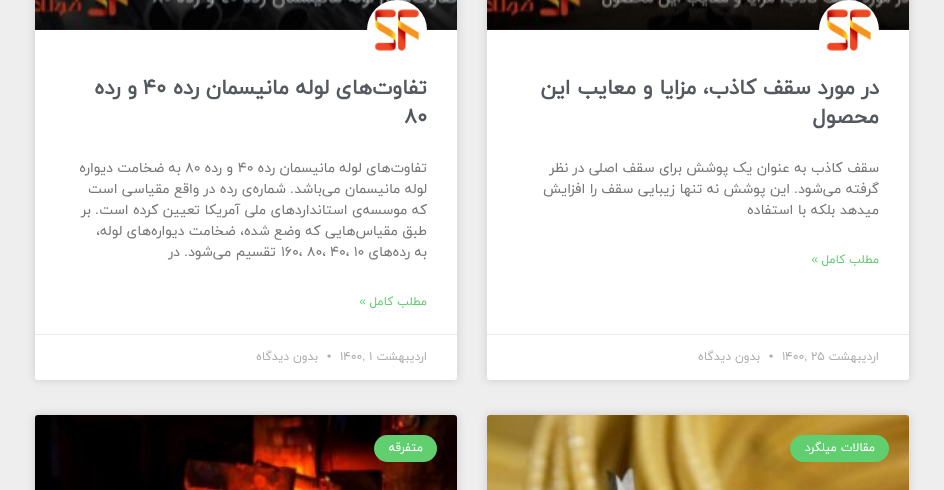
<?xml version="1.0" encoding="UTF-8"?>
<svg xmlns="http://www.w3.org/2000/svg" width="944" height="490">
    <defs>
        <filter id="blur1" x="-50%" y="-200%" width="200%" height="500%"><feGaussianBlur stdDeviation="5"/></filter>
        <linearGradient id="g1" gradientUnits="userSpaceOnUse" x1="698" y1="30" x2="698" y2="-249"><stop offset="0" stop-color="#000000" stop-opacity="0.35"/><stop offset="0.75" stop-color="#000000" stop-opacity="0"/></linearGradient>
        <linearGradient id="g2" gradientUnits="userSpaceOnUse" x1="246" y1="30" x2="246" y2="-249"><stop offset="0" stop-color="#000000" stop-opacity="0.35"/><stop offset="0.75" stop-color="#000000" stop-opacity="0"/></linearGradient>
    </defs>
    <rect width="100%" height="100%" fill="#EEEEEE"/>
    <rect x="487" y="-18" width="422" height="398" rx="3" fill="#000000" fill-opacity="0.15" filter="url(#blur1)"/>
    <rect x="487" y="-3" width="422" height="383" rx="3" fill="#FFFFFF"/>
    <image x="487" y="0" width="422" height="30" href="img_01.png"/>
    <rect x="487" y="0" width="422" height="30" fill="url(#g1)"/>
    <image x="819" y="0" width="60" height="53" href="img_02.png"/>
    <text font-family="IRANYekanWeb" font-size="21" font-weight="700" direction="rtl" fill="#54595F">
        <tspan x="879" y="94">در مورد سقف کاذب، مزایا و معایب این</tspan>
        <tspan x="879" y="123">محصول</tspan>
    </text>
    <text font-family="IRANYekanWeb" font-size="14" direction="rtl" fill="#777777">
        <tspan x="879" y="172">سقف کاذب به عنوان یک پوشش برای سقف اصلی در نظر</tspan>
        <tspan x="879" y="193">گرفته می‌شود</tspan>
    </text>
    <text x="798" y="193" font-family="Liberation Sans" font-size="14" direction="rtl" fill="#777777">.</text>
    <text x="790" y="193" font-family="IRANYekanWeb" font-size="14" direction="rtl" fill="#777777">این پوشش نه تنها زیبایی سقف را افزایش</text>
    <text x="879" y="214" font-family="IRANYekanWeb" font-size="14" direction="rtl" fill="#777777">میدهد بلکه با استفاده</text>
    <text x="879" y="263" font-family="IRANYekanWeb" font-size="12" direction="rtl" fill="#61CE70">مطلب کامل</text>
    <text x="818" y="263" font-family="Liberation Sans" font-size="12" direction="rtl" fill="#61CE70">»</text>
    <rect x="487" y="334" width="422" height="1" fill="#EAEAEA"/>
    <text x="879" y="360" font-family="IRANYekanWeb" font-size="12" direction="rtl" fill="#ADADAD">اردیبهشت</text>
    <text x="811" y="360" font-family="IRANYekanWeb" font-size="12" fill="#ADADAD">۲۵</text>
    <text x="782" y="360" font-family="IRANYekanWeb" font-size="12" fill="#ADADAD">۱۴۰۰</text>
    <text x="769" y="360" font-family="Liberation Sans" font-size="12" fill="#ADADAD">•</text>
    <text x="760" y="360" font-family="IRANYekanWeb" font-size="12" direction="rtl" fill="#ADADAD">بدون دیدگاه</text>
    <text x="804" y="360" font-family="Liberation Sans" font-size="12" fill="#ADADAD">,</text>
    <rect x="35" y="-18" width="422" height="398" rx="3" fill="#000000" fill-opacity="0.15" filter="url(#blur1)"/>
    <rect x="35" y="-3" width="422" height="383" rx="3" fill="#FFFFFF"/>
    <image x="35" y="0" width="422" height="30" href="img_03.png"/>
    <rect x="35" y="0" width="422" height="30" fill="url(#g2)"/>
    <image x="367" y="0" width="60" height="53" href="img_04.png"/>
    <text x="427" y="94" font-family="IRANYekanWeb" font-size="21" font-weight="700" direction="rtl" fill="#54595F">تفاوت‌های لوله مانیسمان رده</text>
    <text x="143" y="94" font-family="IRANYekanWeb" font-size="21" font-weight="700" fill="#54595F">۴۰</text>
    <text x="137" y="94" font-family="IRANYekanWeb" font-size="21" font-weight="700" direction="rtl" fill="#54595F">و رده</text>
    <text x="404" y="123" font-family="IRANYekanWeb" font-size="21" font-weight="700" fill="#54595F">۸۰</text>
    <text x="427" y="172" font-family="IRANYekanWeb" font-size="14" direction="rtl" fill="#777777">تفاوت‌های لوله مانیسمان رده</text>
    <text x="238" y="172" font-family="IRANYekanWeb" font-size="14" fill="#777777">۴۰</text>
    <text x="233" y="172" font-family="IRANYekanWeb" font-size="14" direction="rtl" fill="#777777">و رده</text>
    <text x="185" y="172" font-family="IRANYekanWeb" font-size="14" fill="#777777">۸۰</text>
    <text x="181" y="172" font-family="IRANYekanWeb" font-size="14" direction="rtl" fill="#777777">به ضخامت دیواره</text>
    <text x="427" y="193" font-family="IRANYekanWeb" font-size="14" direction="rtl" fill="#777777">لوله مانیسمان می‌باشد</text>
    <text x="294" y="193" font-family="Liberation Sans" font-size="14" direction="rtl" fill="#777777">.</text>
    <text x="286" y="193" font-family="IRANYekanWeb" font-size="14" direction="rtl" fill="#777777">شماره‌ی رده در واقع مقیاسی است</text>
    <text x="427" y="214" font-family="IRANYekanWeb" font-size="14" direction="rtl" fill="#777777">که موسسه‌ی استانداردهای ملی آمریکا تعیین کرده است</text>
    <text x="99" y="214" font-family="Liberation Sans" font-size="14" direction="rtl" fill="#777777">.</text>
    <text x="91" y="214" font-family="IRANYekanWeb" font-size="14" direction="rtl" fill="#777777">بر</text>
    <text font-family="IRANYekanWeb" font-size="14" direction="rtl" fill="#777777">
        <tspan x="427" y="235">طبق مقیاس‌هایی که وضع شده، ضخامت دیواره‌های لوله،</tspan>
        <tspan x="427" y="256">به رده‌های</tspan>
    </text>
    <text x="281" y="256" font-family="IRANYekanWeb" font-size="14" fill="#777777">۱۶۰، ۸۰، ۴۰، ۱۰</text>
    <text x="276" y="256" font-family="IRANYekanWeb" font-size="14" direction="rtl" fill="#777777">تقسیم می‌شود</text>
    <text x="188" y="256" font-family="Liberation Sans" font-size="14" direction="rtl" fill="#777777">.</text>
    <text x="180" y="256" font-family="IRANYekanWeb" font-size="14" direction="rtl" fill="#777777">در</text>
    <text x="427" y="305" font-family="IRANYekanWeb" font-size="12" direction="rtl" fill="#61CE70">مطلب کامل</text>
    <text x="366" y="305" font-family="Liberation Sans" font-size="12" direction="rtl" fill="#61CE70">»</text>
    <rect x="35" y="334" width="422" height="1" fill="#EAEAEA"/>
    <text x="427" y="360" font-family="IRANYekanWeb" font-size="12" direction="rtl" fill="#ADADAD">اردیبهشت</text>
    <text x="369" y="360" font-family="IRANYekanWeb" font-size="12" fill="#ADADAD">۱</text>
    <text x="340" y="360" font-family="IRANYekanWeb" font-size="12" fill="#ADADAD">۱۴۰۰</text>
    <text x="327" y="360" font-family="Liberation Sans" font-size="12" fill="#ADADAD">•</text>
    <text x="318" y="360" font-family="IRANYekanWeb" font-size="12" direction="rtl" fill="#ADADAD">بدون دیدگاه</text>
    <text x="362" y="360" font-family="Liberation Sans" font-size="12" fill="#ADADAD">,</text>
    <rect x="487" y="415" width="422" height="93" rx="3" fill="#000000" fill-opacity="0.15" filter="url(#blur1)"/>
    <image x="487" y="415" width="422" height="75" href="img_05.png"/>
    <rect x="790" y="435" width="99" height="27" rx="13.5" fill="#61CE70"/>
    <text x="875" y="451" font-family="IRANYekanWeb" font-size="12" direction="rtl" fill="#FFFFFF">مقالات میلگرد</text>
    <rect x="35" y="415" width="422" height="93" rx="3" fill="#000000" fill-opacity="0.15" filter="url(#blur1)"/>
    <image x="35" y="415" width="422" height="75" href="img_06.png"/>
    <rect x="374" y="435" width="63" height="27" rx="13.5" fill="#61CE70"/>
    <text x="423" y="451" font-family="IRANYekanWeb" font-size="12" direction="rtl" fill="#FFFFFF">متفرقه</text>
</svg>
